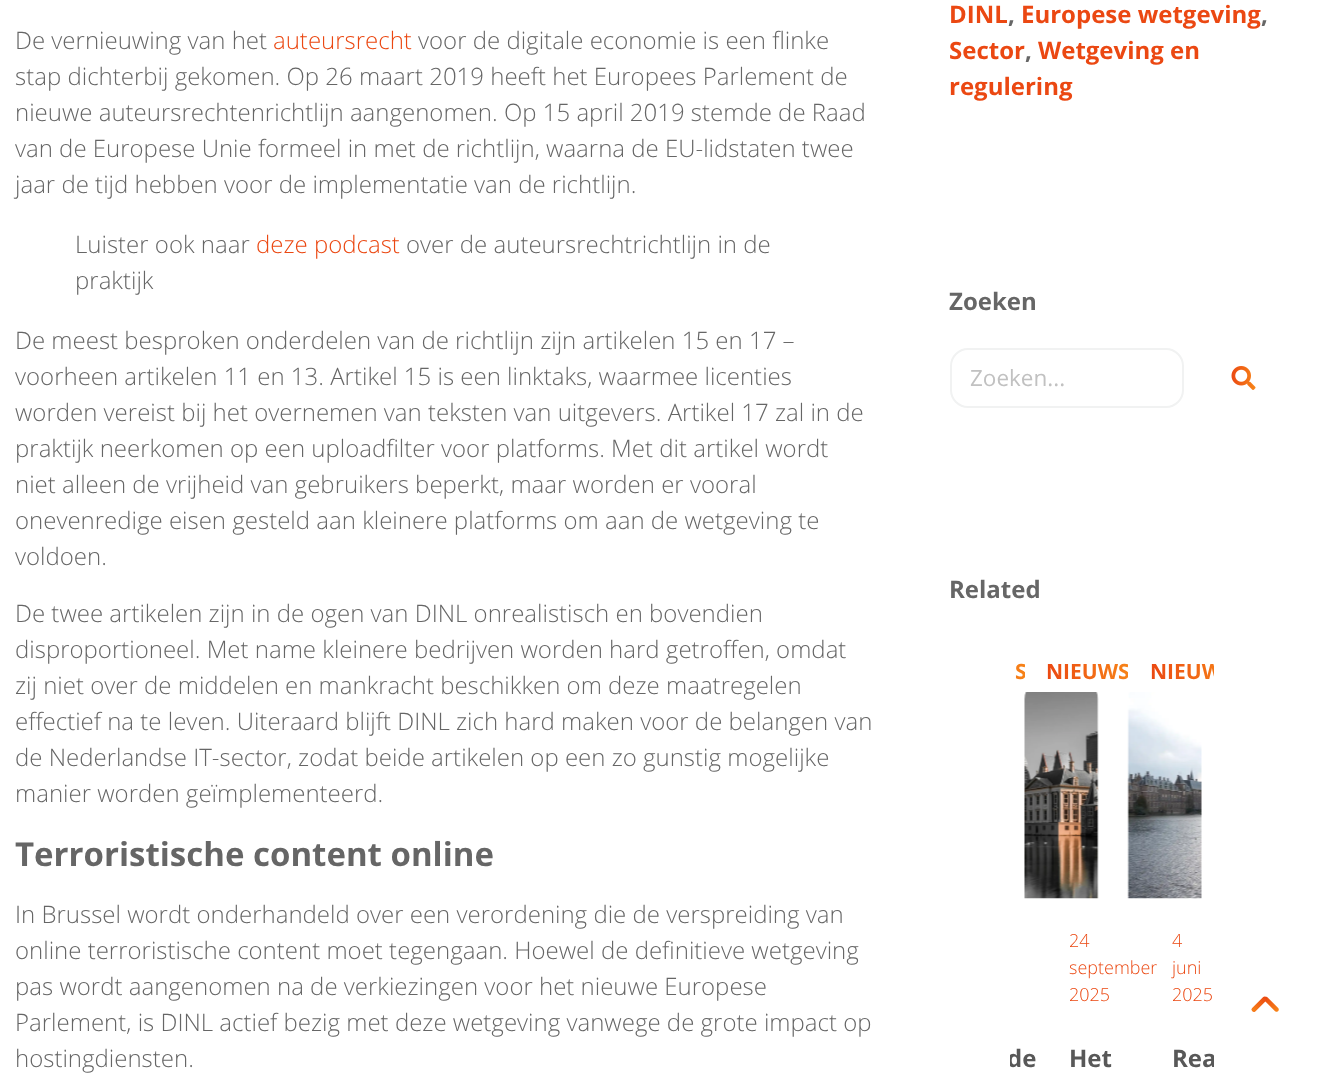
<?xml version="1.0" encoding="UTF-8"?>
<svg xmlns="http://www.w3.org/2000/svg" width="1333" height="1077">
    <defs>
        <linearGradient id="g1" gradientUnits="userSpaceOnUse" x1="943" y1="671" x2="1027" y2="671"><stop offset="0" stop-color="#EB4812"/><stop offset="1" stop-color="#F78418"/></linearGradient>
        <clipPath id="clip1"><rect x="1010" y="636" width="204" height="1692"/></clipPath>
        <linearGradient id="g2" gradientUnits="userSpaceOnUse" x1="1046" y1="671" x2="1130" y2="671"><stop offset="0" stop-color="#EB4812"/><stop offset="1" stop-color="#F78418"/></linearGradient>
        <linearGradient id="g3" gradientUnits="userSpaceOnUse" x1="1150" y1="671" x2="1234" y2="671"><stop offset="0" stop-color="#EB4812"/><stop offset="1" stop-color="#F78418"/></linearGradient>
    </defs>
    <rect width="100%" height="100%" fill="#FFFFFF"/>
    <text x="15" y="49" font-family="Open Sans" font-size="24" font-weight="300" fill="#666666">De vernieuwing van het</text>
    <text x="273" y="49" font-family="Open Sans" font-size="24" font-weight="300" fill="#EB4812">auteursrecht</text>
    <text x="418" y="49" font-family="Open Sans" font-size="24" font-weight="300" fill="#666666">voor de digitale economie is een flinke</text>
    <text font-family="Open Sans" font-size="24" font-weight="300" fill="#666666">
        <tspan x="15" y="85">stap dichterbij gekomen. Op 26 maart 2019 heeft het Europees Parlement de</tspan>
        <tspan x="15" y="121">nieuwe auteursrechtenrichtlijn aangenomen. Op 15 april 2019 stemde de Raad</tspan>
        <tspan x="15" y="157">van de Europese Unie formeel in met de richtlijn, waarna de EU-lidstaten twee</tspan>
        <tspan x="15" y="193">jaar de tijd hebben voor de implementatie van de richtlijn.</tspan>
    </text>
    <text x="75" y="253" font-family="Open Sans" font-size="24" font-weight="300" fill="#666666">Luister ook naar</text>
    <text x="256" y="253" font-family="Open Sans" font-size="24" font-weight="300" fill="#EB4812">deze podcast</text>
    <text x="406" y="253" font-family="Open Sans" font-size="24" font-weight="300" fill="#666666">over de auteursrechtrichtlijn in de</text>
    <text x="75" y="289" font-family="Open Sans" font-size="24" font-weight="300" fill="#666666">praktijk</text>
    <text font-family="Open Sans" font-size="24" font-weight="300" fill="#666666">
        <tspan x="15" y="349">De meest besproken onderdelen van de richtlijn zijn artikelen 15 en 17 –</tspan>
        <tspan x="15" y="385">voorheen artikelen 11 en 13. Artikel 15 is een linktaks, waarmee licenties</tspan>
        <tspan x="15" y="421">worden vereist bij het overnemen van teksten van uitgevers. Artikel 17 zal in de</tspan>
        <tspan x="15" y="457">praktijk neerkomen op een uploadfilter voor platforms. Met dit artikel wordt</tspan>
        <tspan x="15" y="493">niet alleen de vrijheid van gebruikers beperkt, maar worden er vooral</tspan>
        <tspan x="15" y="529">onevenredige eisen gesteld aan kleinere platforms om aan de wetgeving te</tspan>
        <tspan x="15" y="565">voldoen.</tspan>
    </text>
    <text font-family="Open Sans" font-size="24" font-weight="300" fill="#666666">
        <tspan x="15" y="622">De twee artikelen zijn in de ogen van DINL onrealistisch en bovendien</tspan>
        <tspan x="15" y="658">disproportioneel. Met name kleinere bedrijven worden hard getroffen, omdat</tspan>
        <tspan x="15" y="694">zij niet over de middelen en mankracht beschikken om deze maatregelen</tspan>
        <tspan x="15" y="730">effectief na te leven. Uiteraard blijft DINL zich hard maken voor de belangen van</tspan>
        <tspan x="15" y="766">de Nederlandse IT-sector, zodat beide artikelen op een zo gunstig mogelijke</tspan>
        <tspan x="15" y="802">manier worden geïmplementeerd.</tspan>
    </text>
    <text x="15" y="866" font-family="Open Sans" font-size="33" font-weight="700" fill="#666666">Terroristische content online</text>
    <text font-family="Open Sans" font-size="24" font-weight="300" fill="#666666">
        <tspan x="15" y="923">In Brussel wordt onderhandeld over een verordening die de verspreiding van</tspan>
        <tspan x="15" y="959">online terroristische content moet tegengaan. Hoewel de definitieve wetgeving</tspan>
        <tspan x="15" y="995">pas wordt aangenomen na de verkiezingen voor het nieuwe Europese</tspan>
        <tspan x="15" y="1031">Parlement, is DINL actief bezig met deze wetgeving vanwege de grote impact op</tspan>
        <tspan x="15" y="1067">hostingdiensten.</tspan>
    </text>
    <text x="949" y="23" font-family="Open Sans" font-size="24" font-weight="700" fill="#EB4812">DINL</text>
    <text x="1008" y="23" font-family="Open Sans" font-size="24" font-weight="700" fill="#666666">,</text>
    <text x="1021" y="23" font-family="Open Sans" font-size="24" font-weight="700" fill="#EB4812">Europese wetgeving</text>
    <text x="1261" y="23" font-family="Open Sans" font-size="24" font-weight="700" fill="#666666">,</text>
    <text x="949" y="59" font-family="Open Sans" font-size="24" font-weight="700" fill="#EB4812">Sector</text>
    <text x="1025" y="59" font-family="Open Sans" font-size="24" font-weight="700" fill="#666666">,</text>
    <text x="1038" y="59" font-family="Open Sans" font-size="24" font-weight="700" fill="#EB4812">Wetgeving en</text>
    <text x="949" y="95" font-family="Open Sans" font-size="24" font-weight="700" fill="#EB4812">regulering</text>
    <text x="949" y="310" font-family="Open Sans" font-size="24" font-weight="700" fill="#666666">Zoeken</text>
    <rect x="951" y="349" width="232" height="58" rx="17" fill="none" stroke="#F1F2F2" stroke-width="2"/>
    <text x="970" y="386" font-family="Open Sans" font-size="22.5" fill="#C1C1C1">Zoeken...</text>
    <image x="1231" y="366" width="25" height="24" href="img_01.png"/>
    <text x="949" y="598" font-family="Open Sans" font-size="24" font-weight="700" fill="#666666">Related</text>
    <text x="1015" y="679" font-family="Open Sans" font-size="21" font-weight="700" fill="url(#g1)">S</text>
    <g clip-path="url(#clip1)">
        <text x="1007" y="1067" font-family="Open Sans" font-size="24" font-weight="700" fill="#585858">de</text>
    </g>
    <rect x="1025" y="651" width="127" height="41" rx="11" fill="#FFFFFF"/>
    <text x="1046" y="679" font-family="Open Sans" font-size="21" font-weight="700" fill="url(#g2)">NIEUWS</text>
    <image x="1024" y="692" width="75" height="207" href="img_02.png"/>
    <text font-family="Open Sans" font-size="18" font-weight="300" fill="#EB4812">
        <tspan x="1069" y="947">24</tspan>
        <tspan x="1069" y="974">september</tspan>
        <tspan x="1069" y="1001">2025</tspan>
    </text>
    <text x="1069" y="1067" font-family="Open Sans" font-size="24" font-weight="700" fill="#585858">Het</text>
    <path d="M 1139 651 H 1214 V 692 H 1139 C 1133 692 1128 687 1128 681 V 662 C 1128 656 1133 651 1139 651 Z" fill="#FFFFFF"/>
    <g clip-path="url(#clip1)">
        <text x="1150" y="679" font-family="Open Sans" font-size="21" font-weight="700" fill="url(#g3)">NIEUW</text>
    </g>
    <image x="1127" y="692" width="75" height="207" href="img_03.png"/>
    <text font-family="Open Sans" font-size="18" font-weight="300" fill="#EB4812">
        <tspan x="1172" y="947">4</tspan>
        <tspan x="1172" y="974">juni</tspan>
        <tspan x="1172" y="1001">2025</tspan>
    </text>
    <g clip-path="url(#clip1)">
        <text x="1172" y="1067" font-family="Open Sans" font-size="24" font-weight="700" fill="#585858">Rea</text>
    </g>
    <image x="1265" y="996" width="14" height="16" href="img_05.png"/>
    <path d="M 1252.5 1008 L 1263.5 997 C 1266 996 1268 999 1266 1000.5 L 1255 1011.5 C 1252.5 1012.5 1250.5 1009.5 1252.5 1008 Z" fill="#EB4812"/>
    <image x="1251" y="996" width="15" height="16" href="img_04.png"/>
</svg>
